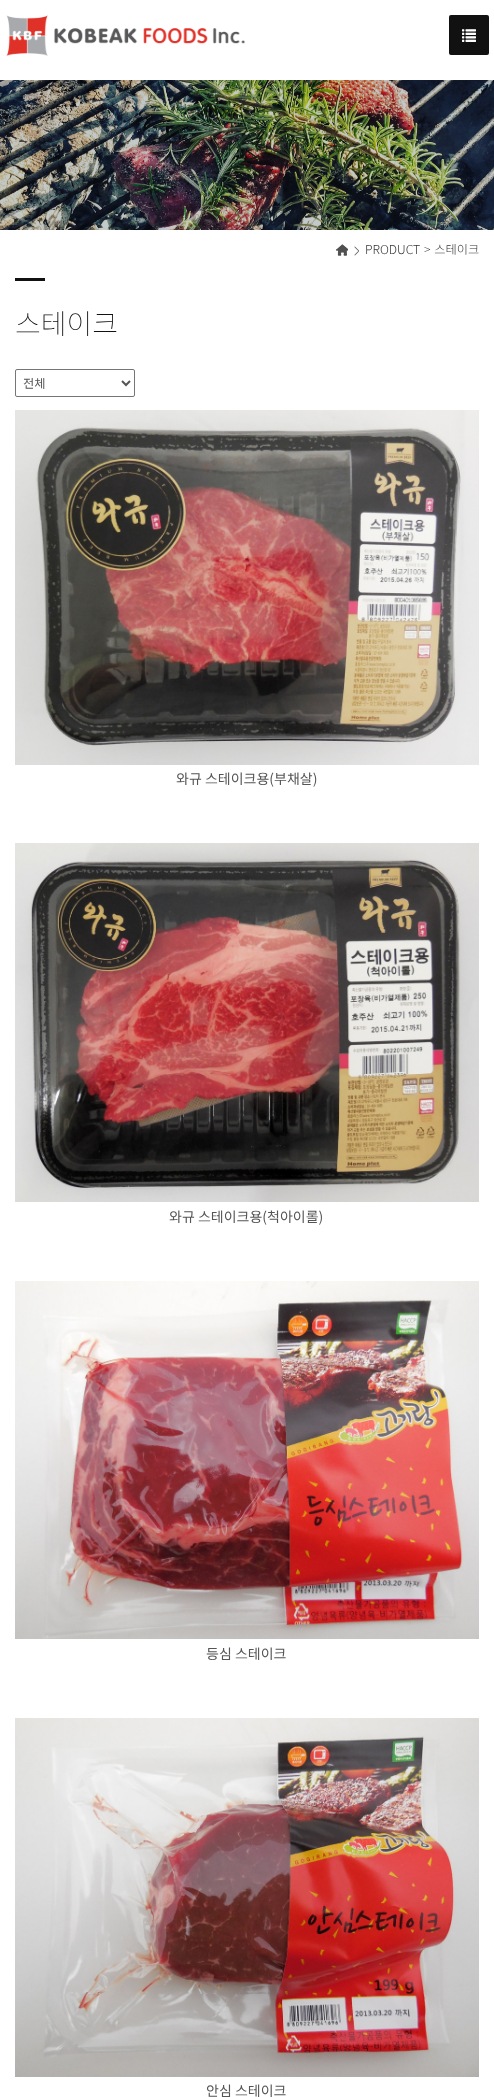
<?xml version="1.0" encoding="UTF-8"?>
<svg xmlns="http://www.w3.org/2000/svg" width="494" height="2097">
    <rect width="100%" height="100%" fill="#FFFFFF"/>
    <image x="6" y="15" width="239" height="41" href="img_01.png"/>
    <rect x="449" y="15" width="40" height="40" rx="2" fill="#111111"/>
    <image x="462" y="29" width="14" height="13" href="img_02.png"/>
    <image x="0" y="80" width="494" height="150" href="img_03.png"/>
    <image x="336" y="244" width="23" height="12" href="img_04.png"/>
    <text x="365" y="254" word-spacing="1" font-family="Noto Sans KR" font-size="12.25" font-weight="300" fill="#333333">PRODUCT &gt; 스테이크</text>
    <rect x="15" y="278" width="30" height="3" fill="#111111"/>
    <text x="15" y="334" font-family="Noto Sans KR" font-size="28" font-weight="100" fill="#111111">스테이크</text>
    <rect x="15.5" y="369.5" width="119" height="27" rx="1.5" fill="none" stroke="#767676"/>
    <path d="M 122 381 L 126 385 L 130 381" fill="none" stroke="#555555" stroke-width="2"/>
    <text x="23" y="388" font-family="Noto Sans KR" font-size="12.25" fill="#555555">전체</text>
    <image x="15" y="410" width="464" height="355" href="img_05.png"/>
    <text x="176" y="784" font-family="Noto Sans KR" font-size="14" fill="#555555">와규 스테이크용(부채살)</text>
    <image x="15" y="843" width="464" height="359" href="img_06.png"/>
    <text x="169" y="1222" font-family="Noto Sans KR" font-size="14" fill="#555555">와규 스테이크용(척아이롤)</text>
    <image x="15" y="1281" width="464" height="358" href="img_07.png"/>
    <text x="206" y="1659" font-family="Noto Sans KR" font-size="14" fill="#555555">등심 스테이크</text>
    <image x="15" y="1718" width="464" height="359" href="img_08.png"/>
    <text x="206" y="2096" font-family="Noto Sans KR" font-size="14" fill="#555555">안심 스테이크</text>
</svg>
